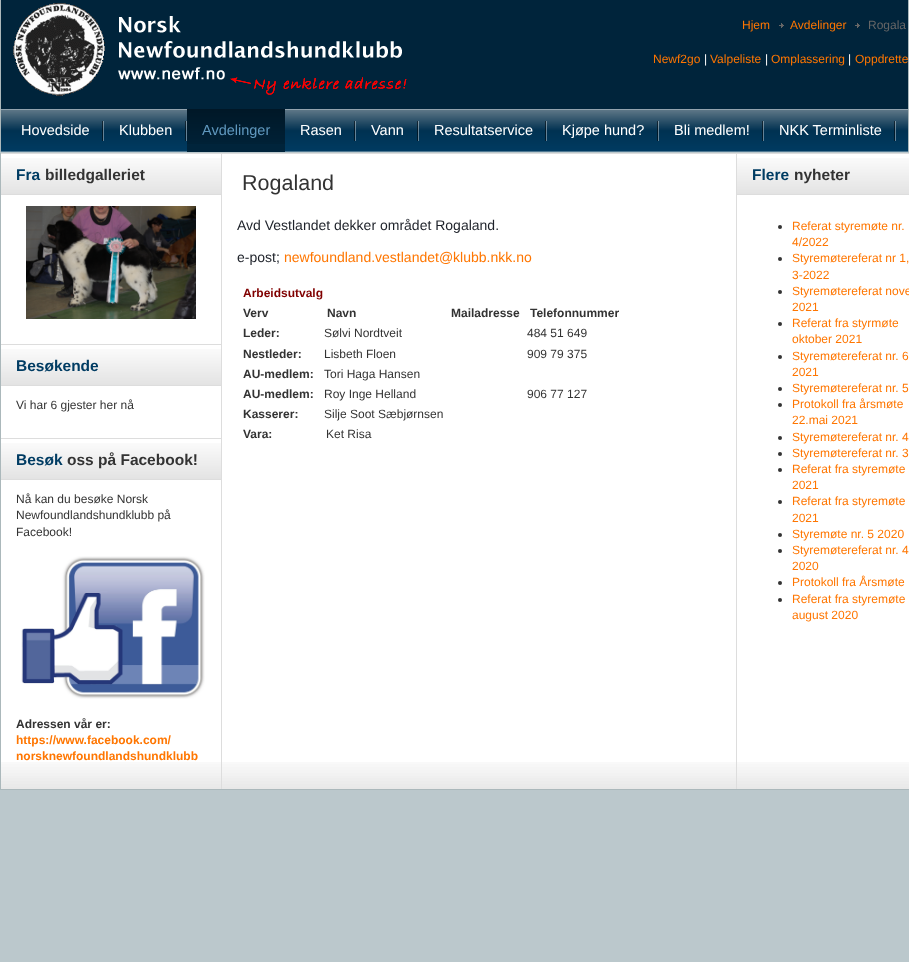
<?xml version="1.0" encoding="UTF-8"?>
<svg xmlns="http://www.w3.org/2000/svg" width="909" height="962">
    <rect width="100%" height="100%" fill="#BBC8CC"/>
    <rect x="1" y="0" width="907" height="108" fill="#00243B"/>
    <image x="13" y="3" width="394" height="93" href="img_01.png"/>
    <text x="742" y="29" font-family="Liberation Sans" font-size="12" fill="#FF7601">Hjem</text>
    <image x="779" y="23" width="5" height="5" href="img_02.png"/>
    <text x="790" y="29" font-family="Liberation Sans" font-size="12" fill="#FF7601">Avdelinger</text>
    <image x="855" y="23" width="5" height="5" href="img_02.png"/>
    <text x="868" y="29" font-family="Liberation Sans" font-size="12" fill="#666666">Rogala</text>
    <text x="653" y="63" font-family="Liberation Sans" font-size="12" fill="#FF7601">Newf2go</text>
    <text x="704" y="63" font-family="Liberation Sans" font-size="12" fill="#FFFFFF">|</text>
    <text x="710" y="63" font-family="Liberation Sans" font-size="12" fill="#FF7601">Valpeliste</text>
    <text x="765" y="63" font-family="Liberation Sans" font-size="12" fill="#FFFFFF">|</text>
    <text x="771" y="63" font-family="Liberation Sans" font-size="12" fill="#FF7601">Omplassering</text>
    <text x="848" y="63" font-family="Liberation Sans" font-size="12" fill="#FFFFFF">|</text>
    <text x="855" y="63" font-family="Liberation Sans" font-size="12" fill="#FF7601">Oppdrette</text>
    <rect x="1" y="109" width="907" height="43" fill="#003C63"/>
    <image x="1" y="109" width="907" height="43" href="img_03.png"/>
    <rect x="0" y="108" width="909" height="1" fill="#00243B"/>
    <rect x="908" y="0" width="1" height="152" fill="#ABB8BB"/>
    <rect x="0" y="0" width="1" height="152" fill="#ABB8BB"/>
    <image x="102" y="121" width="2" height="20" href="img_04.png"/>
    <text x="21" y="135" font-family="Liberation Sans" font-size="14.5" fill="#FFFFFF">Hovedside</text>
    <image x="185" y="121" width="2" height="20" href="img_04.png"/>
    <text x="119" y="135" font-family="Liberation Sans" font-size="14.5" fill="#FFFFFF">Klubben</text>
    <rect x="187" y="109" width="98" height="43" fill="#00243B"/>
    <image x="187" y="109" width="98" height="35" href="img_05.png"/>
    <text x="202" y="135" font-family="Liberation Sans" font-size="14.5" fill="#5F98BE">Avdelinger</text>
    <image x="354" y="121" width="2" height="20" href="img_04.png"/>
    <text x="300" y="135" font-family="Liberation Sans" font-size="14.5" fill="#FFFFFF">Rasen</text>
    <image x="417" y="121" width="2" height="20" href="img_04.png"/>
    <text x="371" y="135" font-family="Liberation Sans" font-size="14.5" fill="#FFFFFF">Vann</text>
    <image x="545" y="121" width="2" height="20" href="img_04.png"/>
    <text x="434" y="135" font-family="Liberation Sans" font-size="14.5" fill="#FFFFFF">Resultatservice</text>
    <image x="657" y="121" width="2" height="20" href="img_04.png"/>
    <text x="562" y="135" font-family="Liberation Sans" font-size="14.5" fill="#FFFFFF">Kjøpe hund?</text>
    <image x="762" y="121" width="2" height="20" href="img_04.png"/>
    <text x="674" y="135" font-family="Liberation Sans" font-size="14.5" fill="#FFFFFF">Bli medlem!</text>
    <image x="894" y="121" width="2" height="20" href="img_04.png"/>
    <text x="779" y="135" font-family="Liberation Sans" font-size="14.5" fill="#FFFFFF">NKK Terminliste</text>
    <rect x="1" y="154" width="908" height="608" fill="#FFFFFF"/>
    <image x="1" y="762" width="908" height="27" href="img_06.png"/>
    <rect x="0" y="789" width="909" height="1" fill="#ABB8BB"/>
    <rect x="0" y="153" width="1" height="637" fill="#ABB8BB"/>
    <rect x="221" y="153" width="1" height="636" fill="#DDDDDD"/>
    <rect x="1" y="153" width="220" height="1" fill="#DDDDDD"/>
    <image x="1" y="158" width="220" height="37" href="img_07.png"/>
    <text x="16" y="180" font-family="Liberation Sans" font-size="15.5" font-weight="700" fill="#003C63">Fra</text>
    <text x="45" y="180" font-family="Liberation Sans" font-size="15.5" font-weight="700" fill="#333333">billedgalleriet</text>
    <image x="26" y="206" width="170" height="113" href="img_08.png"/>
    <rect x="1" y="344" width="220" height="1" fill="#DDDDDD"/>
    <image x="1" y="349" width="220" height="37" href="img_07.png"/>
    <text x="16" y="371" font-family="Liberation Sans" font-size="15.5" font-weight="700" fill="#003C63">Besøkende</text>
    <text x="16" y="409" font-family="Liberation Sans" font-size="12" fill="#333333">Vi har 6 gjester her nå</text>
    <rect x="1" y="438" width="220" height="1" fill="#DDDDDD"/>
    <image x="1" y="443" width="220" height="37" href="img_07.png"/>
    <text x="16" y="465" font-family="Liberation Sans" font-size="15.5" font-weight="700" fill="#003C63">Besøk</text>
    <text x="67" y="465" font-family="Liberation Sans" font-size="15.5" font-weight="700" fill="#333333">oss på Facebook!</text>
    <text font-family="Liberation Sans" font-size="12" fill="#333333">
        <tspan x="16" y="503">Nå kan du besøke Norsk</tspan>
        <tspan x="16" y="519">Newfoundlandshundklubb på</tspan>
        <tspan x="16" y="536">Facebook!</tspan>
    </text>
    <image x="21" y="556" width="184" height="143" href="img_09.png"/>
    <text x="16" y="728" font-family="Liberation Sans" font-size="12" font-weight="700" fill="#333333">Adressen vår er:</text>
    <text font-family="Liberation Sans" font-size="12" font-weight="700" fill="#FF7601">
        <tspan x="16" y="744">https://www.facebook.com/</tspan>
        <tspan x="16" y="760">norsknewfoundlandshundklubb</tspan>
    </text>
    <rect x="222" y="153" width="514" height="1" fill="#DDDDDD"/>
    <text x="242" y="190" font-family="Liberation Sans" font-size="21.5" fill="#333333">Rogaland</text>
    <text x="237" y="230" font-family="Liberation Sans" font-size="14" fill="#1D2129">Avd Vestlandet dekker området Rogaland.</text>
    <text x="237" y="262" font-family="Liberation Sans" font-size="14" fill="#1D2129">e-post;</text>
    <text x="284" y="262" font-family="Liberation Sans" font-size="14" fill="#FF7601">newfoundland.vestlandet@klubb.nkk.no</text>
    <text x="243" y="297" font-family="Liberation Sans" font-size="12" font-weight="700" fill="#800000">Arbeidsutvalg</text>
    <text x="243" y="317" font-family="Liberation Sans" font-size="12" font-weight="700" fill="#333333">Verv</text>
    <text x="327" y="317" font-family="Liberation Sans" font-size="12" font-weight="700" fill="#333333">Navn</text>
    <text x="451" y="317" font-family="Liberation Sans" font-size="12" font-weight="700" fill="#333333">Mailadresse</text>
    <text x="530" y="317" font-family="Liberation Sans" font-size="12" font-weight="700" fill="#333333">Telefonnummer</text>
    <text x="243" y="337" font-family="Liberation Sans" font-size="12" font-weight="700" fill="#333333">Leder:</text>
    <text x="324" y="337" font-family="Liberation Sans" font-size="12" fill="#333333">Sølvi Nordtveit</text>
    <text x="527" y="337" font-family="Liberation Sans" font-size="12" fill="#333333">484 51 649</text>
    <text x="243" y="358" font-family="Liberation Sans" font-size="12" font-weight="700" fill="#333333">Nestleder:</text>
    <text x="324" y="358" font-family="Liberation Sans" font-size="12" fill="#333333">Lisbeth Floen</text>
    <text x="527" y="358" font-family="Liberation Sans" font-size="12" fill="#333333">909 79 375</text>
    <text x="243" y="378" font-family="Liberation Sans" font-size="12" font-weight="700" fill="#333333">AU-medlem:</text>
    <text x="324" y="378" font-family="Liberation Sans" font-size="12" fill="#333333">Tori Haga Hansen</text>
    <text x="243" y="398" font-family="Liberation Sans" font-size="12" font-weight="700" fill="#333333">AU-medlem:</text>
    <text x="324" y="398" font-family="Liberation Sans" font-size="12" fill="#333333">Roy Inge Helland</text>
    <text x="527" y="398" font-family="Liberation Sans" font-size="12" fill="#333333">906 77 127</text>
    <text x="243" y="418" font-family="Liberation Sans" font-size="12" font-weight="700" fill="#333333">Kasserer:</text>
    <text x="324" y="418" font-family="Liberation Sans" font-size="12" fill="#333333">Silje Soot Sæbjørnsen</text>
    <text x="243" y="438" font-family="Liberation Sans" font-size="12" font-weight="700" fill="#333333">Vara:</text>
    <text x="326" y="438" font-family="Liberation Sans" font-size="12" fill="#333333">Ket Risa</text>
    <rect x="736" y="153" width="1" height="636" fill="#DDDDDD"/>
    <rect x="737" y="153" width="172" height="1" fill="#DDDDDD"/>
    <image x="737" y="158" width="172" height="37" href="img_10.png"/>
    <text x="752" y="180" font-family="Liberation Sans" font-size="15.5" font-weight="700" fill="#003C63">Flere</text>
    <text x="794" y="180" font-family="Liberation Sans" font-size="15.5" font-weight="700" fill="#333333">nyheter</text>
    <circle cx="780" cy="227" r="2" fill="#333333"/>
    <text font-family="Liberation Sans" font-size="12" fill="#FF7601">
        <tspan x="792" y="230">Referat styremøte nr.</tspan>
        <tspan x="792" y="246">4/2022</tspan>
    </text>
    <circle cx="780" cy="259" r="2" fill="#333333"/>
    <text font-family="Liberation Sans" font-size="12" fill="#FF7601">
        <tspan x="792" y="262">Styremøtereferat nr 1,</tspan>
        <tspan x="792" y="279">3-2022</tspan>
    </text>
    <circle cx="780" cy="292" r="2" fill="#333333"/>
    <text font-family="Liberation Sans" font-size="12" fill="#FF7601">
        <tspan x="792" y="295">Styremøtereferat nove</tspan>
        <tspan x="792" y="311">2021</tspan>
    </text>
    <circle cx="780" cy="324" r="2" fill="#333333"/>
    <text font-family="Liberation Sans" font-size="12" fill="#FF7601">
        <tspan x="792" y="327">Referat fra styrmøte</tspan>
        <tspan x="792" y="343">oktober 2021</tspan>
    </text>
    <circle cx="780" cy="357" r="2" fill="#333333"/>
    <text font-family="Liberation Sans" font-size="12" fill="#FF7601">
        <tspan x="792" y="360">Styremøtereferat nr. 6</tspan>
        <tspan x="792" y="376">2021</tspan>
    </text>
    <circle cx="780" cy="389" r="2" fill="#333333"/>
    <text x="792" y="392" font-family="Liberation Sans" font-size="12" fill="#FF7601">Styremøtereferat nr. 5</text>
    <circle cx="780" cy="405" r="2" fill="#333333"/>
    <text font-family="Liberation Sans" font-size="12" fill="#FF7601">
        <tspan x="792" y="408">Protokoll fra årsmøte</tspan>
        <tspan x="792" y="424">22.mai 2021</tspan>
    </text>
    <circle cx="780" cy="438" r="2" fill="#333333"/>
    <text x="792" y="441" font-family="Liberation Sans" font-size="12" fill="#FF7601">Styremøtereferat nr. 4</text>
    <circle cx="780" cy="454" r="2" fill="#333333"/>
    <text x="792" y="457" font-family="Liberation Sans" font-size="12" fill="#FF7601">Styremøtereferat nr. 3</text>
    <circle cx="780" cy="470" r="2" fill="#333333"/>
    <text font-family="Liberation Sans" font-size="12" fill="#FF7601">
        <tspan x="792" y="473">Referat fra styremøte</tspan>
        <tspan x="792" y="489">2021</tspan>
    </text>
    <circle cx="780" cy="502" r="2" fill="#333333"/>
    <text font-family="Liberation Sans" font-size="12" fill="#FF7601">
        <tspan x="792" y="505">Referat fra styremøte</tspan>
        <tspan x="792" y="522">2021</tspan>
    </text>
    <circle cx="780" cy="535" r="2" fill="#333333"/>
    <text x="792" y="538" font-family="Liberation Sans" font-size="12" fill="#FF7601">Styremøte nr. 5 2020</text>
    <circle cx="780" cy="551" r="2" fill="#333333"/>
    <text font-family="Liberation Sans" font-size="12" fill="#FF7601">
        <tspan x="792" y="554">Styremøtereferat nr. 4</tspan>
        <tspan x="792" y="570">2020</tspan>
    </text>
    <circle cx="780" cy="583" r="2" fill="#333333"/>
    <text x="792" y="586" font-family="Liberation Sans" font-size="12" fill="#FF7601">Protokoll fra Årsmøte</text>
    <circle cx="780" cy="600" r="2" fill="#333333"/>
    <text font-family="Liberation Sans" font-size="12" fill="#FF7601">
        <tspan x="792" y="603">Referat fra styremøte</tspan>
        <tspan x="792" y="619">august 2020</tspan>
    </text>
</svg>
